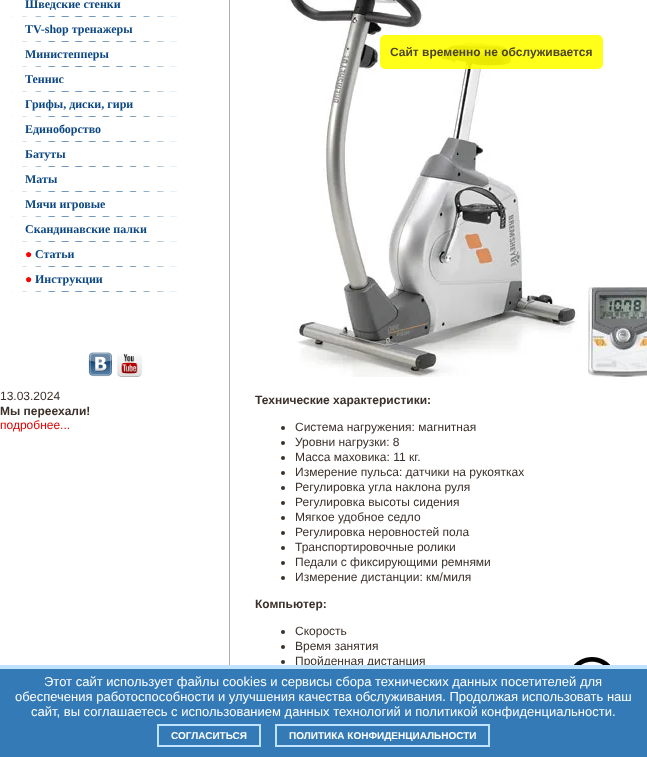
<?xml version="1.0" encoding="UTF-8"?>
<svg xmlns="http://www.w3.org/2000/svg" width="647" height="757">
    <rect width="100%" height="100%" fill="#FFFFFF"/>
    <image x="0" y="0" width="647" height="665" href="img_01.png"/>
    <text x="25" y="8" font-family="Liberation Serif" font-size="12" font-weight="700" fill="#0C4781">Шведские стенки</text>
    <image x="10" y="16" width="167" height="1" href="img_02.png"/>
    <text x="25" y="33" font-family="Liberation Serif" font-size="12" font-weight="700" fill="#0C4781">TV-shop тренажеры</text>
    <image x="10" y="41" width="167" height="1" href="img_02.png"/>
    <text x="25" y="58" font-family="Liberation Serif" font-size="12" font-weight="700" fill="#0C4781">Министепперы</text>
    <image x="10" y="66" width="167" height="1" href="img_02.png"/>
    <text x="25" y="83" font-family="Liberation Serif" font-size="12" font-weight="700" fill="#0C4781">Теннис</text>
    <image x="10" y="91" width="167" height="1" href="img_02.png"/>
    <text x="25" y="108" font-family="Liberation Serif" font-size="12" font-weight="700" fill="#0C4781">Грифы, диски, гири</text>
    <image x="10" y="116" width="167" height="1" href="img_02.png"/>
    <text x="25" y="133" font-family="Liberation Serif" font-size="12" font-weight="700" fill="#0C4781">Единоборство</text>
    <image x="10" y="141" width="167" height="1" href="img_02.png"/>
    <text x="25" y="158" font-family="Liberation Serif" font-size="12" font-weight="700" fill="#0C4781">Батуты</text>
    <image x="10" y="166" width="167" height="1" href="img_02.png"/>
    <text x="25" y="183" font-family="Liberation Serif" font-size="12" font-weight="700" fill="#0C4781">Маты</text>
    <image x="10" y="191" width="167" height="1" href="img_02.png"/>
    <text x="25" y="208" font-family="Liberation Serif" font-size="12" font-weight="700" fill="#0C4781">Мячи игровые</text>
    <image x="10" y="216" width="167" height="1" href="img_02.png"/>
    <text x="25" y="233" font-family="Liberation Serif" font-size="12" font-weight="700" fill="#0C4781">Скандинавские палки</text>
    <image x="10" y="241" width="167" height="1" href="img_02.png"/>
    <text x="25" y="258" font-family="Liberation Serif" font-size="12" font-weight="700" fill="#FF0000">●</text>
    <text x="35" y="258" font-family="Liberation Serif" font-size="12" font-weight="700" fill="#0C4781">Статьи</text>
    <image x="10" y="266" width="167" height="1" href="img_02.png"/>
    <text x="25" y="283" font-family="Liberation Serif" font-size="12" font-weight="700" fill="#FF0000">●</text>
    <text x="35" y="283" font-family="Liberation Serif" font-size="12" font-weight="700" fill="#0C4781">Инструкции</text>
    <image x="10" y="291" width="167" height="1" href="img_02.png"/>
    <image x="88" y="352" width="24" height="25" href="img_03.png"/>
    <image x="117" y="353" width="25" height="24" href="img_04.png"/>
    <text x="0" y="400" font-family="Liberation Sans" font-size="12" fill="#3B302A">13.03.2024</text>
    <text x="0" y="415" font-family="Liberation Sans" font-size="12" font-weight="700" fill="#3B302A">Мы переехали!</text>
    <text x="0" y="429" font-family="Liberation Sans" font-size="12" fill="#DF0000">подробнее...</text>
    <image x="287" y="0" width="291" height="377" href="img_05.png"/>
    <image x="588" y="287" width="59" height="90" href="img_06.png"/>
    <text x="255" y="404" font-family="Liberation Sans" font-size="12" font-weight="700" fill="#3B302A">Технические характеристики:</text>
    <circle cx="283" cy="428" r="2" fill="#3B302A"/>
    <text x="295" y="431" font-family="Liberation Sans" font-size="12" fill="#3B302A">Система нагружения: магнитная</text>
    <circle cx="283" cy="443" r="2" fill="#3B302A"/>
    <text x="295" y="446" font-family="Liberation Sans" font-size="12" fill="#3B302A">Уровни нагрузки: 8</text>
    <circle cx="283" cy="458" r="2" fill="#3B302A"/>
    <text x="295" y="461" font-family="Liberation Sans" font-size="12" fill="#3B302A">Масса маховика: 11 кг.</text>
    <circle cx="283" cy="473" r="2" fill="#3B302A"/>
    <text x="295" y="476" font-family="Liberation Sans" font-size="12" fill="#3B302A">Измерение пульса: датчики на рукоятках</text>
    <circle cx="283" cy="488" r="2" fill="#3B302A"/>
    <text x="295" y="491" font-family="Liberation Sans" font-size="12" fill="#3B302A">Регулировка угла наклона руля</text>
    <circle cx="283" cy="503" r="2" fill="#3B302A"/>
    <text x="295" y="506" font-family="Liberation Sans" font-size="12" fill="#3B302A">Регулировка высоты сидения</text>
    <circle cx="283" cy="518" r="2" fill="#3B302A"/>
    <text x="295" y="521" font-family="Liberation Sans" font-size="12" fill="#3B302A">Мягкое удобное седло</text>
    <circle cx="283" cy="533" r="2" fill="#3B302A"/>
    <text x="295" y="536" font-family="Liberation Sans" font-size="12" fill="#3B302A">Регулировка неровностей пола</text>
    <circle cx="283" cy="548" r="2" fill="#3B302A"/>
    <text x="295" y="551" font-family="Liberation Sans" font-size="12" fill="#3B302A">Транспортировочные ролики</text>
    <circle cx="283" cy="563" r="2" fill="#3B302A"/>
    <text x="295" y="566" font-family="Liberation Sans" font-size="12" fill="#3B302A">Педали с фиксирующими ремнями</text>
    <circle cx="283" cy="578" r="2" fill="#3B302A"/>
    <text x="295" y="581" font-family="Liberation Sans" font-size="12" fill="#3B302A">Измерение дистанции: км/миля</text>
    <text x="255" y="608" font-family="Liberation Sans" font-size="12" font-weight="700" fill="#3B302A">Компьютер:</text>
    <circle cx="283" cy="632" r="2" fill="#3B302A"/>
    <text x="295" y="635" font-family="Liberation Sans" font-size="12" fill="#3B302A">Скорость</text>
    <circle cx="283" cy="647" r="2" fill="#3B302A"/>
    <text x="295" y="650" font-family="Liberation Sans" font-size="12" fill="#3B302A">Время занятия</text>
    <circle cx="283" cy="662" r="2" fill="#3B302A"/>
    <text x="295" y="665" font-family="Liberation Sans" font-size="12" fill="#3B302A">Пройденная дистанция</text>
    <rect x="380" y="35" width="223" height="34" rx="5" fill="#FFFF00" fill-opacity="0.9"/>
    <text x="390" y="56" font-family="Liberation Sans" font-size="12" font-weight="700" fill="#4E4428">Сайт временно не обслуживается</text>
    <image x="574" y="657" width="36" height="8" href="img_07.png"/>
    <rect x="0" y="669" width="647" height="88" fill="#337AB7"/>
    <rect x="0" y="665" width="647" height="4" fill="#BFE2FF"/>
    <text x="44" y="686" font-family="Liberation Sans" font-size="13" fill="#FFFFFF">Этот сайт использует файлы cookies и сервисы сбора технических данных посетителей для</text>
    <text x="15" y="701" font-family="Liberation Sans" font-size="13" fill="#FFFFFF">обеспечения работоспособности и улучшения качества обслуживания. Продолжая использовать наш</text>
    <text x="31" y="716" font-family="Liberation Sans" font-size="13" fill="#FFFFFF">сайт, вы соглашаетесь с использованием данных технологий и политикой конфиденциальности.</text>
    <rect x="158" y="725" width="102" height="21" fill="none" stroke="#BFE2FF" stroke-width="2"/>
    <text x="171" y="739" font-family="Liberation Sans" font-size="10" font-weight="700" fill="#FFFFFF">СОГЛАСИТЬСЯ</text>
    <rect x="276" y="725" width="213" height="21" fill="none" stroke="#BFE2FF" stroke-width="2"/>
    <text x="289" y="739" font-family="Liberation Sans" font-size="10" font-weight="700" fill="#FFFFFF">ПОЛИТИКА КОНФИДЕНЦИАЛЬНОСТИ</text>
</svg>
